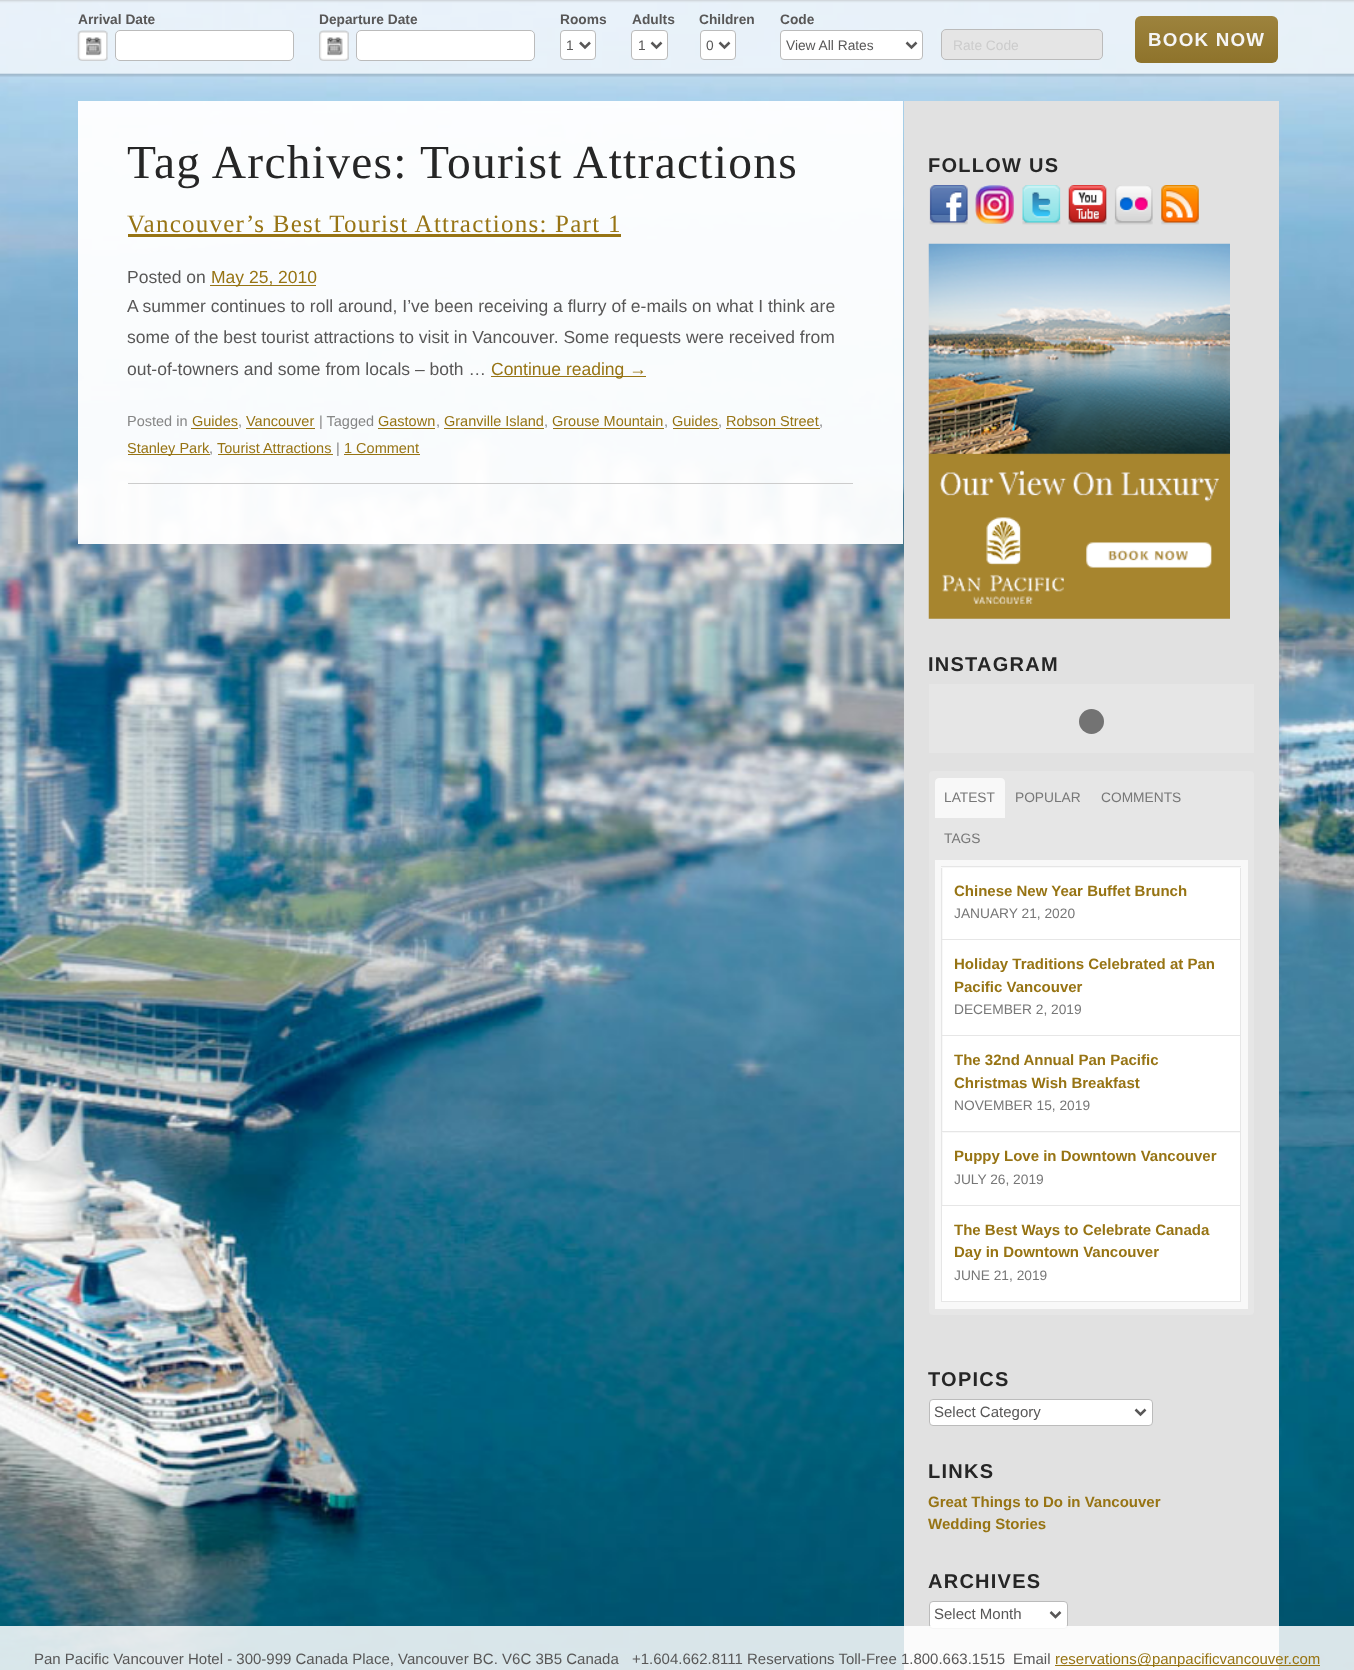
<?xml version="1.0" encoding="UTF-8"?>
<svg xmlns="http://www.w3.org/2000/svg" width="1354" height="1670">
    <defs>
        <linearGradient id="g1" gradientUnits="userSpaceOnUse" x1="1206" y1="16" x2="1206" y2="63"><stop offset="0" stop-color="#9D833D"/><stop offset="1" stop-color="#8E732B"/></linearGradient>
    </defs>
    <rect width="100%" height="100%" fill="#FFFFFF"/>
    <image x="0" y="0" width="1354" height="1670" href="img_01.png"/>
    <image x="0" y="0" width="1354" height="77" href="img_02.png"/>
    <text x="78" y="24" font-family="Liberation Sans" font-size="13.75" font-weight="700" fill="#585757">Arrival Date</text>
    <image x="77" y="30" width="31" height="31" href="img_03.png"/>
    <rect x="115.5" y="30.5" width="178" height="30" rx="4.5" fill="#FFFFFF" stroke="#BBBBBB"/>
    <text x="319" y="24" font-family="Liberation Sans" font-size="13.75" font-weight="700" fill="#585757">Departure Date</text>
    <image x="319" y="30" width="30" height="31" href="img_04.png"/>
    <rect x="356.5" y="30.5" width="178" height="30" rx="4.5" fill="#FFFFFF" stroke="#BBBBBB"/>
    <text x="560" y="24" font-family="Liberation Sans" font-size="13.75" font-weight="700" fill="#585757">Rooms</text>
    <rect x="560.5" y="30.5" width="35" height="29" rx="3.5" fill="#FFFFFF" stroke="#BBBBBB"/>
    <path d="M 580 42.5 L 585 47.5 L 590 42.5" fill="none" stroke="#585757" stroke-width="2.5"/>
    <text x="566" y="50" font-family="Liberation Sans" font-size="13.75" fill="#585757">1</text>
    <text x="632" y="24" font-family="Liberation Sans" font-size="13.75" font-weight="700" fill="#585757">Adults</text>
    <rect x="631.5" y="30.5" width="36" height="29" rx="3.5" fill="#FFFFFF" stroke="#BBBBBB"/>
    <path d="M 651.5 42.5 L 656.5 47.5 L 661.5 42.5" fill="none" stroke="#585757" stroke-width="2.5"/>
    <text x="638" y="50" font-family="Liberation Sans" font-size="13.75" fill="#585757">1</text>
    <text x="699" y="24" font-family="Liberation Sans" font-size="13.75" font-weight="700" fill="#585757">Children</text>
    <rect x="700.5" y="30.5" width="35" height="29" rx="3.5" fill="#FFFFFF" stroke="#BBBBBB"/>
    <path d="M 719.5 42.5 L 724.5 47.5 L 729.5 42.5" fill="none" stroke="#585757" stroke-width="2.5"/>
    <text x="706" y="50" font-family="Liberation Sans" font-size="13.75" fill="#585757">0</text>
    <text x="780" y="24" font-family="Liberation Sans" font-size="13.75" font-weight="700" fill="#585757">Code</text>
    <rect x="780.5" y="30.5" width="142" height="29" rx="3.5" fill="#FFFFFF" stroke="#BBBBBB"/>
    <path d="M 906.5 42.5 L 911.5 47.5 L 916.5 42.5" fill="none" stroke="#585757" stroke-width="2.5"/>
    <text x="786" y="50" font-family="Liberation Sans" font-size="13.75" fill="#585757">View All Rates</text>
    <rect x="941.5" y="29.5" width="161" height="30" rx="4.5" fill="#E5E5E5" stroke="#BBBBBB"/>
    <text x="953" y="50" font-family="Liberation Sans" font-size="13.75" fill="#CCCCCC">Rate Code</text>
    <rect x="1135" y="16" width="143" height="47" rx="6" fill="url(#g1)"/>
    <text x="1148" y="46" font-family="Liberation Sans" font-size="18.75" font-weight="700" letter-spacing="1.25" fill="#F5F5F5">BOOK NOW</text>
    <rect x="78" y="101" width="825" height="443" fill="#FFFFFF" fill-opacity="0.96"/>
    <text x="127" y="178" font-family="Liberation Serif" font-size="47.5" letter-spacing="1.25" fill="#262626">Tag Archives: Tourist Attractions</text>
    <text x="127" y="232" font-family="Liberation Serif" font-size="25" letter-spacing="1.25" fill="#977414">Vancouver’s Best Tourist Attractions: Part 1</text>
    <rect x="128" y="234" width="493" height="3" fill="#977414"/>
    <text x="127" y="283" font-family="Liberation Sans" font-size="17.5" fill="#585757">Posted on</text>
    <rect x="210" y="285" width="106" height="1" fill="#977414"/>
    <text x="211" y="283" font-family="Liberation Sans" font-size="17.5" fill="#977414">May 25, 2010</text>
    <text font-family="Liberation Sans" font-size="17.5" fill="#585757">
        <tspan x="127" y="312">A summer continues to roll around, I’ve been receiving a flurry of e-mails on what I think are</tspan>
        <tspan x="127" y="343">some of the best tourist attractions to visit in Vancouver. Some requests were received from</tspan>
        <tspan x="127" y="375">out-of-towners and some from locals – both …</tspan>
    </text>
    <rect x="491" y="376" width="155" height="1" fill="#977414"/>
    <text x="491" y="375" font-family="Liberation Sans" font-size="17.5" fill="#977414">Continue reading →</text>
    <text x="127" y="426" font-family="Liberation Sans" font-size="14.5" fill="#868686">Posted in</text>
    <text x="192" y="426" font-family="Liberation Sans" font-size="14.5" fill="#977414">Guides</text>
    <text x="238" y="426" font-family="Liberation Sans" font-size="14.5" fill="#868686">,</text>
    <rect x="191" y="428" width="47" height="1" fill="#977414"/>
    <rect x="246" y="428" width="69" height="1" fill="#977414"/>
    <text x="246" y="426" font-family="Liberation Sans" font-size="14.5" fill="#977414">Vancouver</text>
    <text x="319" y="426" font-family="Liberation Sans" font-size="14.5" fill="#868686">| Tagged</text>
    <text x="378" y="426" font-family="Liberation Sans" font-size="14.5" fill="#977414">Gastown</text>
    <text x="436" y="426" font-family="Liberation Sans" font-size="14.5" fill="#868686">,</text>
    <rect x="378" y="428" width="57" height="1" fill="#977414"/>
    <text x="444" y="426" font-family="Liberation Sans" font-size="14.5" fill="#977414">Granville Island</text>
    <text x="544" y="426" font-family="Liberation Sans" font-size="14.5" fill="#868686">,</text>
    <rect x="444" y="428" width="100" height="1" fill="#977414"/>
    <text x="552" y="426" font-family="Liberation Sans" font-size="14.5" fill="#977414">Grouse Mountain</text>
    <text x="664" y="426" font-family="Liberation Sans" font-size="14.5" fill="#868686">,</text>
    <rect x="553" y="428" width="111" height="1" fill="#977414"/>
    <text x="672" y="426" font-family="Liberation Sans" font-size="14.5" fill="#977414">Guides</text>
    <text x="718" y="426" font-family="Liberation Sans" font-size="14.5" fill="#868686">,</text>
    <rect x="673" y="428" width="46" height="1" fill="#977414"/>
    <text x="726" y="426" font-family="Liberation Sans" font-size="14.5" fill="#977414">Robson Street</text>
    <text x="819" y="426" font-family="Liberation Sans" font-size="14.5" fill="#868686">,</text>
    <rect x="726" y="428" width="94" height="1" fill="#977414"/>
    <rect x="128" y="454" width="82" height="1" fill="#977414"/>
    <text x="127" y="453" font-family="Liberation Sans" font-size="14.5" fill="#977414">Stanley Park</text>
    <text x="209" y="453" font-family="Liberation Sans" font-size="14.5" fill="#868686">,</text>
    <rect x="218" y="454" width="115" height="1" fill="#977414"/>
    <text x="217" y="453" font-family="Liberation Sans" font-size="14.5" fill="#977414">Tourist Attractions</text>
    <text x="336" y="453" font-family="Liberation Sans" font-size="14.5" fill="#868686">|</text>
    <text x="344" y="453" font-family="Liberation Sans" font-size="14.5" fill="#977414">1 Comment</text>
    <rect x="344" y="454" width="76" height="1" fill="#977414"/>
    <rect x="128" y="483" width="725" height="1" fill="#CCCCCC"/>
    <rect x="904" y="101" width="375" height="1569" fill="#E1E1E1"/>
    <text x="928" y="172" font-family="Liberation Sans" font-size="20" font-weight="700" letter-spacing="1.25" fill="#262626">FOLLOW US</text>
    <image x="929" y="185" width="39" height="40" href="img_05.png"/>
    <image x="975" y="185" width="39" height="39" href="img_06.png"/>
    <image x="1022" y="185" width="39" height="40" href="img_07.png"/>
    <image x="1068" y="185" width="39" height="40" href="img_08.png"/>
    <image x="1114" y="185" width="39" height="40" href="img_09.png"/>
    <image x="1161" y="185" width="38" height="40" href="img_10.png"/>
    <image x="928" y="243" width="302" height="376" href="img_11.png"/>
    <text x="928" y="671" font-family="Liberation Sans" font-size="20" font-weight="700" letter-spacing="1.25" fill="#262626">INSTAGRAM</text>
    <rect x="929" y="684" width="325" height="69" fill="#E6E6E6"/>
    <circle cx="1091.5" cy="721.5" r="12.5" fill="#737373"/>
    <rect x="929" y="771" width="325" height="544" rx="4" fill="#E6E6E6"/>
    <path d="M 939 778 H 1001 C 1003 778 1005 780 1005 782 V 818 H 935 V 782 C 935 780 937 778 939 778 Z" fill="#F8F8F8"/>
    <text x="944" y="802" font-family="Liberation Sans" font-size="13.75" fill="#777777">LATEST</text>
    <text x="1015" y="802" font-family="Liberation Sans" font-size="13.75" fill="#777777">POPULAR</text>
    <text x="1101" y="802" font-family="Liberation Sans" font-size="13.75" fill="#777777">COMMENTS</text>
    <text x="944" y="843" font-family="Liberation Sans" font-size="13.75" fill="#777777">TAGS</text>
    <rect x="935" y="860" width="313" height="449" fill="#F8F8F8"/>
    <rect x="941" y="866" width="300" height="1" fill="#E6E6E6"/>
    <rect x="941" y="1301" width="300" height="1" fill="#E6E6E6"/>
    <rect x="943" y="868" width="297" height="71" fill="#FFFFFF"/>
    <rect x="1240" y="868" width="1" height="433" fill="#E6E6E6"/>
    <rect x="941" y="939" width="300" height="1" fill="#E6E6E6"/>
    <rect x="941" y="868" width="1" height="72" fill="#E6E6E6"/>
    <text x="954" y="896" font-family="Liberation Sans" font-size="15" font-weight="700" fill="#977414">Chinese New Year Buffet Brunch</text>
    <text x="954" y="918" font-family="Liberation Sans" font-size="13.75" fill="#777777">JANUARY 21, 2020</text>
    <rect x="943" y="940" width="297" height="95" fill="#FFFFFF"/>
    <rect x="941" y="1035" width="300" height="1" fill="#E6E6E6"/>
    <rect x="941" y="940" width="1" height="96" fill="#E6E6E6"/>
    <text font-family="Liberation Sans" font-size="15" font-weight="700" fill="#977414">
        <tspan x="954" y="969">Holiday Traditions Celebrated at Pan</tspan>
        <tspan x="954" y="992">Pacific Vancouver</tspan>
    </text>
    <text x="954" y="1014" font-family="Liberation Sans" font-size="13.75" fill="#777777">DECEMBER 2, 2019</text>
    <rect x="943" y="1036" width="297" height="95" fill="#FFFFFF"/>
    <rect x="941" y="1131" width="300" height="1" fill="#E6E6E6"/>
    <rect x="941" y="1036" width="1" height="97" fill="#E6E6E6"/>
    <text font-family="Liberation Sans" font-size="15" font-weight="700" fill="#977414">
        <tspan x="954" y="1065">The 32nd Annual Pan Pacific</tspan>
        <tspan x="954" y="1088">Christmas Wish Breakfast</tspan>
    </text>
    <text x="954" y="1110" font-family="Liberation Sans" font-size="13.75" fill="#777777">NOVEMBER 15, 2019</text>
    <rect x="943" y="1133" width="297" height="72" fill="#FFFFFF"/>
    <rect x="941" y="1205" width="300" height="1" fill="#E6E6E6"/>
    <rect x="941" y="1133" width="1" height="168" fill="#E6E6E6"/>
    <text x="954" y="1161" font-family="Liberation Sans" font-size="15" font-weight="700" fill="#977414">Puppy Love in Downtown Vancouver</text>
    <text x="954" y="1184" font-family="Liberation Sans" font-size="13.75" fill="#777777">JULY 26, 2019</text>
    <rect x="942" y="1206" width="298" height="95" fill="#FFFFFF"/>
    <text font-family="Liberation Sans" font-size="15" font-weight="700" fill="#977414">
        <tspan x="954" y="1235">The Best Ways to Celebrate Canada</tspan>
        <tspan x="954" y="1257">Day in Downtown Vancouver</tspan>
    </text>
    <text x="954" y="1280" font-family="Liberation Sans" font-size="13.75" fill="#777777">JUNE 21, 2019</text>
    <text x="928" y="1386" font-family="Liberation Sans" font-size="20" font-weight="700" letter-spacing="1.25" fill="#262626">TOPICS</text>
    <rect x="929.5" y="1399.5" width="223" height="26" rx="3.5" fill="#FFFFFF" stroke="#BBBBBB"/>
    <path d="M 1135.5 1409.5 L 1140.5 1414.5 L 1145.5 1409.5" fill="none" stroke="#585757" stroke-width="2.5"/>
    <text x="934" y="1417" font-family="Liberation Sans" font-size="15" fill="#585757">Select Category</text>
    <text x="928" y="1478" font-family="Liberation Sans" font-size="20" font-weight="700" letter-spacing="1.25" fill="#262626">LINKS</text>
    <text font-family="Liberation Sans" font-size="15" font-weight="700" fill="#977414">
        <tspan x="928" y="1507">Great Things to Do in Vancouver</tspan>
        <tspan x="928" y="1529">Wedding Stories</tspan>
    </text>
    <text x="928" y="1588" font-family="Liberation Sans" font-size="20" font-weight="700" letter-spacing="1.25" fill="#262626">ARCHIVES</text>
    <rect x="929.5" y="1601.5" width="138" height="27" rx="3.5" fill="#FFFFFF" stroke="#BBBBBB"/>
    <path d="M 1050.5 1612 L 1055.5 1617 L 1060.5 1612" fill="none" stroke="#585757" stroke-width="2.5"/>
    <text x="934" y="1619" font-family="Liberation Sans" font-size="15" fill="#585757">Select Month</text>
    <rect x="0" y="1626" width="1354" height="44" fill="#FFFFFF" fill-opacity="0.85"/>
    <text x="34" y="1664" font-family="Liberation Sans" font-size="15" fill="#585757">Pan Pacific Vancouver Hotel - 300-999 Canada Place, Vancouver BC. V6C 3B5 Canada</text>
    <text x="632" y="1664" font-family="Liberation Sans" font-size="15" fill="#585757">+1.604.662.8111 Reservations Toll-Free 1.800.663.1515</text>
    <text x="1013" y="1664" font-family="Liberation Sans" font-size="15" fill="#585757">Email</text>
    <rect x="1055" y="1665" width="265" height="1" fill="#977414"/>
    <text x="1055" y="1664" font-family="Liberation Sans" font-size="15" fill="#977414">reservations@panpacificvancouver.com</text>
</svg>
